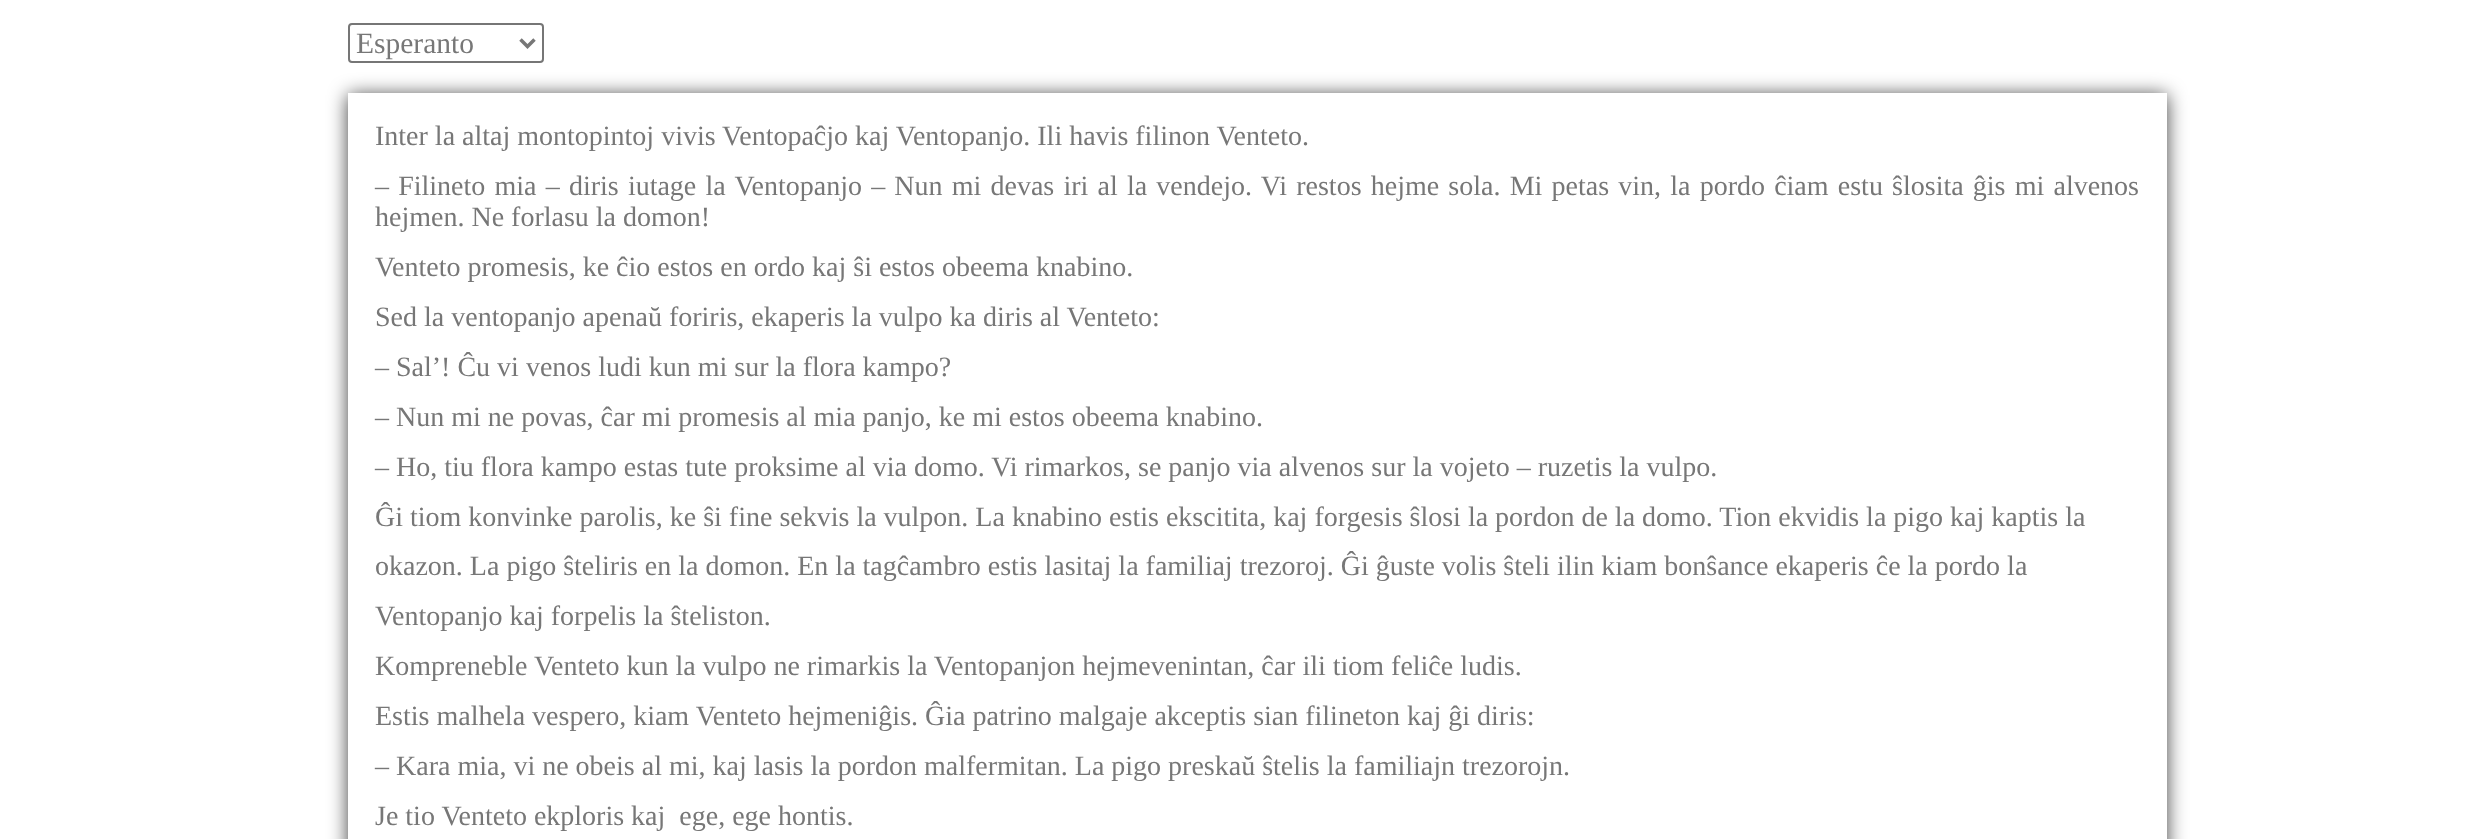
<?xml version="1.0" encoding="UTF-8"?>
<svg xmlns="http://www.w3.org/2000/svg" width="2469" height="839">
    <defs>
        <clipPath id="clip1"><path d="M 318 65 H 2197 V 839 H 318 Z M 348 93 H 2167 V 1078 H 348 Z" clip-rule="evenodd"/></clipPath>
        <filter id="blur1" x="-50%" y="-200%" width="200%" height="500%"><feGaussianBlur stdDeviation="9.5"/></filter>
    </defs>
    <rect width="100%" height="100%" fill="#FFFFFF"/>
    <rect x="349" y="24" width="194" height="38" rx="3" fill="none" stroke="#767676" stroke-width="2"/>
    <path d="M 520.5 39.5 L 527.5 46.5 L 534.5 39.5" fill="none" stroke="#777777" stroke-width="3.5"/>
    <text x="356" y="53" font-family="Liberation Serif" font-size="29.5" fill="#777777">Esperanto</text>
    <g clip-path="url(#clip1)">
        <rect x="348" y="95" width="1819" height="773" fill="#000000" fill-opacity="0.75" filter="url(#blur1)"/>
    </g>
    <text font-family="Liberation Serif" font-size="28" fill="#777777" xml:space="preserve"><tspan x="375" y="145">Inter la altaj montopintoj vivis Ventopaĉjo kaj Ventopanjo. Ili havis filinon Venteto.</tspan><tspan x="375" y="195" word-spacing="2.2">– Filineto mia – diris iutage la Ventopanjo – Nun mi devas iri al la vendejo. Vi restos hejme sola. Mi petas vin, la pordo ĉiam estu ŝlosita ĝis mi alvenos</tspan><tspan x="375" y="226">hejmen. Ne forlasu la domon!</tspan><tspan x="375" y="276">Venteto promesis, ke ĉio estos en ordo kaj ŝi estos obeema knabino.</tspan><tspan x="375" y="326">Sed la ventopanjo apenaŭ foriris, ekaperis la vulpo ka diris al Venteto:</tspan><tspan x="375" y="376">– Sal’! Ĉu vi venos ludi kun mi sur la flora kampo?</tspan><tspan x="375" y="426">– Nun mi ne povas, ĉar mi promesis al mia panjo, ke mi estos obeema knabino.</tspan><tspan x="375" y="476">– Ho, tiu flora kampo estas tute proksime al via domo. Vi rimarkos, se panjo via alvenos sur la vojeto – ruzetis la vulpo.</tspan><tspan x="375" y="526">Ĝi tiom konvinke parolis, ke ŝi fine sekvis la vulpon. La knabino estis ekscitita, kaj forgesis ŝlosi la pordon de la domo. Tion ekvidis la pigo kaj kaptis la</tspan><tspan x="375" y="575">okazon. La pigo ŝteliris en la domon. En la tagĉambro estis lasitaj la familiaj trezoroj. Ĝi ĝuste volis ŝteli ilin kiam bonŝance ekaperis ĉe la pordo la</tspan><tspan x="375" y="625">Ventopanjo kaj forpelis la ŝteliston.</tspan><tspan x="375" y="675">Kompreneble Venteto kun la vulpo ne rimarkis la Ventopanjon hejmevenintan, ĉar ili tiom feliĉe ludis.</tspan><tspan x="375" y="725">Estis malhela vespero, kiam Venteto hejmeniĝis. Ĝia patrino malgaje akceptis sian filineton kaj ĝi diris:</tspan><tspan x="375" y="775">– Kara mia, vi ne obeis al mi, kaj lasis la pordon malfermitan. La pigo preskaŭ ŝtelis la familiajn trezorojn.</tspan><tspan x="375" y="825">Je tio Venteto ekploris kaj  ege, ege hontis.</tspan></text>
</svg>
